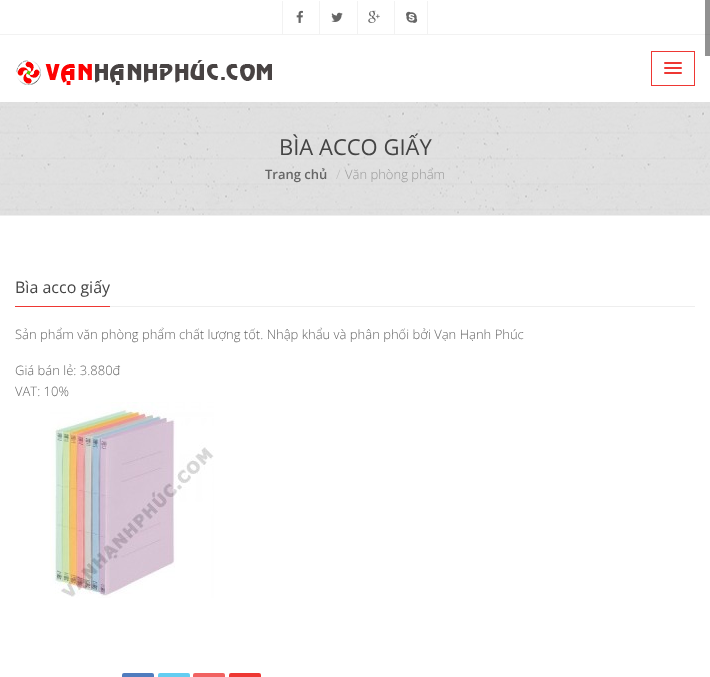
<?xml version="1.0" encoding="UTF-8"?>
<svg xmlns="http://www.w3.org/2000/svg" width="710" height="677">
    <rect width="100%" height="100%" fill="#FFFFFF"/>
    <rect x="0" y="34" width="710" height="1" fill="#F2F2F2"/>
    <rect x="705" y="0" width="5" height="56" fill="#333333" fill-opacity="0.54"/>
    <rect x="282" y="1" width="1" height="33" fill="#F2F2F2"/>
    <image x="296" y="10" width="7" height="13" href="img_01.png"/>
    <rect x="319" y="1" width="1" height="33" fill="#F2F2F2"/>
    <image x="331" y="12" width="12" height="10" href="img_02.png"/>
    <rect x="357" y="1" width="1" height="33" fill="#F2F2F2"/>
    <image x="368" y="10" width="12" height="13" href="img_03.png"/>
    <rect x="427" y="1" width="1" height="33" fill="#F2F2F2"/>
    <rect x="394" y="1" width="1" height="33" fill="#F2F2F2"/>
    <image x="406" y="11" width="12" height="12" href="img_04.png"/>
    <image x="16" y="60" width="256" height="25" href="img_05.png"/>
    <rect x="651.5" y="51.5" width="43" height="34" fill="none" stroke="#EE3733"/>
    <rect x="664" y="62" width="18" height="2" rx="1" fill="#EE3733"/>
    <rect x="664" y="67" width="18" height="2" rx="1" fill="#EE3733"/>
    <rect x="664" y="72" width="18" height="2" rx="1" fill="#EE3733"/>
    <image x="0" y="102" width="710" height="113" href="img_06.png"/>
    <rect x="0" y="215" width="710" height="1" fill="#EEEEEE"/>
    <text x="279" y="155" font-family="Open Sans" font-size="22" fill="#444444">BÌA ACCO GIẤY</text>
    <text x="265" y="179" font-family="Open Sans" font-size="13" font-weight="600" fill="#666666">Trang chủ</text>
    <text x="336" y="179" font-family="Open Sans" font-size="13" font-weight="300" fill="#BBBBBB">/</text>
    <text x="345" y="179" font-family="Open Sans" font-size="13" font-weight="300" fill="#999999">Văn phòng phẩm</text>
    <rect x="110" y="306" width="585" height="1" fill="#EEEEEE"/>
    <text x="15" y="293" font-family="Open Sans" font-size="16" fill="#444444">Bìa acco giấy</text>
    <rect x="15" y="306" width="95" height="1" fill="#EE3733"/>
    <text x="15" y="339" font-family="Open Sans" font-size="13" font-weight="300" fill="#666666">Sản phẩm văn phòng phẩm chất lượng tốt. Nhập khẩu và phân phối bởi Vạn Hạnh Phúc</text>
    <text font-family="Open Sans" font-size="13" font-weight="300" fill="#666666">
        <tspan x="15" y="375">Giá bán lẻ: 3.880đ</tspan>
        <tspan x="15" y="396">VAT: 10%</tspan>
    </text>
    <image x="50" y="402" width="164" height="196" href="img_07.png"/>
    <rect x="122" y="673" width="32" height="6" rx="2" fill="#507CBE"/>
    <rect x="158" y="673" width="32" height="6" rx="2" fill="#63CDF1"/>
    <rect x="193" y="673" width="32" height="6" rx="2" fill="#F16261"/>
    <rect x="229" y="673" width="32" height="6" rx="2" fill="#EE3733"/>
</svg>
